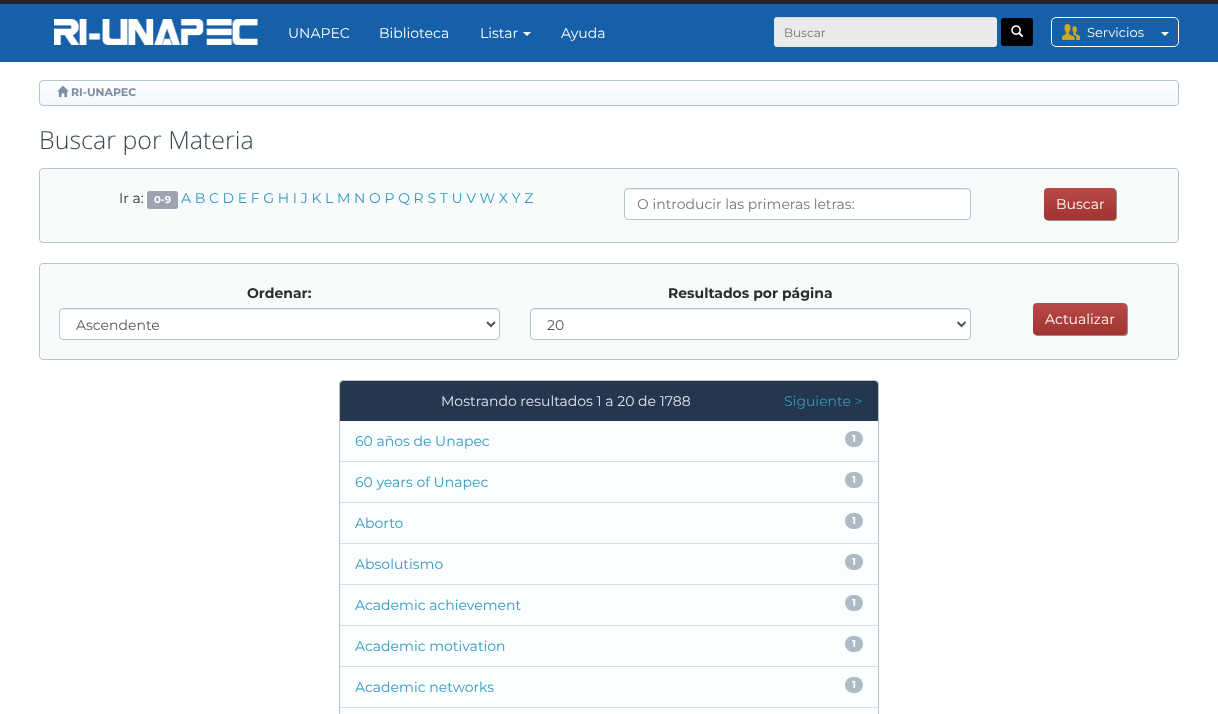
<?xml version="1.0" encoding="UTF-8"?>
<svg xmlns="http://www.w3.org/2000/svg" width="1218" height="714">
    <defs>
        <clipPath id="clip1"><rect x="39" y="80" width="1140" height="26" rx="4"/></clipPath>
        <linearGradient id="g1" gradientUnits="userSpaceOnUse" x1="609" y1="81" x2="609" y2="105"><stop offset="0" stop-color="#FFFFFF"/><stop offset="1" stop-color="#F2F7FA"/></linearGradient>
        <filter id="blur1" x="-50%" y="-200%" width="200%" height="500%"><feGaussianBlur stdDeviation="0.5"/></filter>
        <linearGradient id="g2" gradientUnits="userSpaceOnUse" x1="1080" y1="188" x2="1080" y2="220"><stop offset="0" stop-color="#BA4A47"/><stop offset="1" stop-color="#A2322F"/></linearGradient>
        <linearGradient id="g3" gradientUnits="userSpaceOnUse" x1="1080" y1="303" x2="1080" y2="335"><stop offset="0" stop-color="#BA4A47"/><stop offset="1" stop-color="#A2322F"/></linearGradient>
    </defs>
    <rect width="100%" height="100%" fill="#FFFFFF"/>
    <rect x="0" y="4" width="1218" height="58" fill="#1560A8"/>
    <rect x="0" y="0" width="1218" height="4" fill="#252525"/>
    <image x="54" y="19" width="204" height="26" href="img_01.png"/>
    <text x="288" y="38" font-family="Montserrat" font-size="14" fill="#FFFFFF">UNAPEC</text>
    <text x="379" y="38" font-family="Montserrat" font-size="14" fill="#FFFFFF">Biblioteca</text>
    <text x="480" y="38" font-family="Montserrat" font-size="14" fill="#FFFFFF">Listar</text>
    <path d="M 523 32 H 531 L 527 36 Z" fill="#FFFFFF"/>
    <text x="561" y="38" font-family="Montserrat" font-size="14" fill="#FFFFFF">Ayuda</text>
    <rect x="774" y="17" width="223" height="30" rx="3" fill="#EAEAEA"/>
    <path d="M 777 18 H 994 C 996 18 997 19 997 21 V 20 C 997 18 996 17 994 17 H 777 C 775 17 774 18 774 20 V 21 C 774 19 775 18 777 18 Z" fill="#000000" fill-opacity="0.07"/>
    <text x="784" y="37" font-family="Montserrat" font-size="12" fill="#757575">Buscar</text>
    <rect x="1001" y="18" width="32" height="28" rx="3" fill="#000000"/>
    <image x="1011" y="25" width="13" height="13" href="img_02.png"/>
    <image x="1062" y="24" width="18" height="16" href="img_03.png"/>
    <rect x="1051.5" y="17.5" width="127" height="29" rx="4.5" fill="none" stroke="#FFFFFF"/>
    <text x="1087" y="37" font-family="Montserrat" font-size="13" fill="#FFFFFF">Servicios</text>
    <path d="M 1161 32 H 1169 L 1165 36 Z" fill="#FFFFFF"/>
    <g clip-path="url(#clip1)">
        <rect x="39" y="81" width="1140" height="24" fill="url(#g1)"/>
    </g>
    <rect x="39.5" y="80.5" width="1139" height="25" rx="3.5" fill="none" stroke="#B4C5CF"/>
    <image x="57" y="85" width="12" height="12" href="img_04.png"/>
    <text x="71" y="96" font-family="Montserrat" font-size="11" font-weight="700" fill="#7C8CA2">RI-UNAPEC</text>
    <text x="39" y="149" font-family="Open Sans" font-size="25" font-weight="300" fill="#39464E">Buscar por Materia</text>
    <rect x="39.5" y="168.5" width="1139" height="74" rx="3.5" fill="#F8FBFC" stroke="#B4C5CF"/>
    <text x="119" y="203" font-family="Montserrat" font-size="14" fill="#2C2C2C">Ir a:</text>
    <rect x="147" y="191" width="31" height="18" rx="2.5" fill="#9BA4B0"/>
    <text x="154" y="203" font-family="Montserrat" font-size="10" font-weight="700" fill="#FFFFFF">0-9</text>
    <text x="181" y="203" font-family="Montserrat" font-size="14" fill="#3398BE">A B C D E F G H I J K L M N O P Q R S T U V W X Y Z</text>
    <rect x="624" y="188" width="347" height="32" rx="4" fill="#FFFFFF"/>
    <path d="M 628 190 H 967 C 969 190 970 191 970 193 C 970 191 969 189 967 189 H 628 L 626 190 L 625 193 C 625 191 626 190 628 190 Z" fill="#ECECEC"/>
    <rect x="624.5" y="188.5" width="346" height="31" rx="3.5" fill="none" stroke="#B4C5CF"/>
    <text x="637" y="209" font-family="Montserrat" font-size="14" fill="#757575">O introducir las primeras letras:</text>
    <rect x="1045" y="189" width="72" height="32" rx="4" fill="#919191" filter="url(#blur1)"/>
    <rect x="1044" y="188" width="72" height="32" rx="4" fill="url(#g2)"/>
    <text x="1056" y="209" font-family="Montserrat" font-size="14" fill="#FFFFFF">Buscar</text>
    <rect x="39.5" y="263.5" width="1139" height="96" rx="3.5" fill="#F8FBFC" stroke="#B4C5CF"/>
    <text x="247" y="298" font-family="Montserrat" font-size="14" font-weight="700" fill="#2C2C2C">Ordenar:</text>
    <rect x="59" y="308" width="441" height="32" rx="4" fill="#FFFFFF"/>
    <path d="M 63 310 H 496 C 498 310 499 311 499 313 C 499 311 498 309 496 309 H 62 L 60 311 V 313 C 60 311 61 310 63 310 Z" fill="#ECECEC"/>
    <rect x="59.5" y="308.5" width="440" height="31" rx="3.5" fill="none" stroke="#B4C5CF"/>
    <path d="M 487 322 L 491 326 L 495 322" fill="none" stroke="#555555" stroke-width="2"/>
    <text x="76" y="330" font-family="Montserrat" font-size="14" fill="#555555">Ascendente</text>
    <text x="668" y="298" font-family="Montserrat" font-size="14" font-weight="700" fill="#2C2C2C">Resultados por página</text>
    <rect x="530" y="308" width="441" height="32" rx="4" fill="#FFFFFF"/>
    <path d="M 534 310 H 967 C 969 310 970 311 970 313 C 970 311 969 309 967 309 H 533 L 531 311 V 313 C 531 311 532 310 534 310 Z" fill="#ECECEC"/>
    <rect x="530.5" y="308.5" width="440" height="31" rx="3.5" fill="none" stroke="#B4C5CF"/>
    <path d="M 957.5 322 L 961.5 326 L 965.5 322" fill="none" stroke="#555555" stroke-width="2"/>
    <text x="547" y="330" font-family="Montserrat" font-size="14" fill="#555555">20</text>
    <rect x="1034" y="304" width="94" height="32" rx="4" fill="#919191" filter="url(#blur1)"/>
    <rect x="1033" y="303" width="94" height="32" rx="4" fill="url(#g3)"/>
    <text x="1045" y="324" font-family="Montserrat" font-size="14" fill="#FFFFFF">Actualizar</text>
    <rect x="339.5" y="380.5" width="539" height="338" rx="3.5" fill="none" stroke="#B4C5CF"/>
    <path d="M 343 381 H 875 C 876.5 381 878 382.5 878 384 V 421 H 340 V 384 C 340 382.5 341.5 381 343 381 Z" fill="#25374E"/>
    <text x="441" y="406" font-family="Montserrat" font-size="14" fill="#E0E6EE">Mostrando resultados 1 a 20 de 1788</text>
    <text x="784" y="406" font-family="Montserrat" font-size="14" fill="#3398BE">Siguiente &gt;</text>
    <rect x="340" y="421" width="538" height="40" fill="#FBFEFF"/>
    <rect x="340" y="461" width="538" height="1" fill="#DDDDDD"/>
    <text x="355" y="446" font-family="Montserrat" font-size="14" fill="#3398BE">60 años de Unapec</text>
    <rect x="845" y="431" width="18" height="16" rx="8" fill="#AEBBC4"/>
    <text x="852" y="442" font-family="Montserrat" font-size="10" font-weight="700" fill="#FFFFFF">1</text>
    <rect x="340" y="462" width="538" height="40" fill="#FBFEFF"/>
    <rect x="340" y="502" width="538" height="1" fill="#DDDDDD"/>
    <text x="355" y="487" font-family="Montserrat" font-size="14" fill="#3398BE">60 years of Unapec</text>
    <rect x="845" y="472" width="18" height="16" rx="8" fill="#AEBBC4"/>
    <text x="852" y="483" font-family="Montserrat" font-size="10" font-weight="700" fill="#FFFFFF">1</text>
    <rect x="340" y="503" width="538" height="40" fill="#FBFEFF"/>
    <rect x="340" y="543" width="538" height="1" fill="#DDDDDD"/>
    <text x="355" y="528" font-family="Montserrat" font-size="14" fill="#3398BE">Aborto</text>
    <rect x="845" y="513" width="18" height="16" rx="8" fill="#AEBBC4"/>
    <text x="852" y="524" font-family="Montserrat" font-size="10" font-weight="700" fill="#FFFFFF">1</text>
    <rect x="340" y="544" width="538" height="40" fill="#FBFEFF"/>
    <rect x="340" y="584" width="538" height="1" fill="#DDDDDD"/>
    <text x="355" y="569" font-family="Montserrat" font-size="14" fill="#3398BE">Absolutismo</text>
    <rect x="845" y="554" width="18" height="16" rx="8" fill="#AEBBC4"/>
    <text x="852" y="565" font-family="Montserrat" font-size="10" font-weight="700" fill="#FFFFFF">1</text>
    <rect x="340" y="585" width="538" height="40" fill="#FBFEFF"/>
    <rect x="340" y="625" width="538" height="1" fill="#DDDDDD"/>
    <text x="355" y="610" font-family="Montserrat" font-size="14" fill="#3398BE">Academic achievement</text>
    <rect x="845" y="595" width="18" height="16" rx="8" fill="#AEBBC4"/>
    <text x="852" y="606" font-family="Montserrat" font-size="10" font-weight="700" fill="#FFFFFF">1</text>
    <rect x="340" y="626" width="538" height="40" fill="#FBFEFF"/>
    <rect x="340" y="666" width="538" height="1" fill="#DDDDDD"/>
    <text x="355" y="651" font-family="Montserrat" font-size="14" fill="#3398BE">Academic motivation</text>
    <rect x="845" y="636" width="18" height="16" rx="8" fill="#AEBBC4"/>
    <text x="852" y="647" font-family="Montserrat" font-size="10" font-weight="700" fill="#FFFFFF">1</text>
    <rect x="340" y="667" width="538" height="40" fill="#FBFEFF"/>
    <rect x="340" y="707" width="538" height="1" fill="#DDDDDD"/>
    <text x="355" y="692" font-family="Montserrat" font-size="14" fill="#3398BE">Academic networks</text>
    <rect x="845" y="677" width="18" height="16" rx="8" fill="#AEBBC4"/>
    <text x="852" y="688" font-family="Montserrat" font-size="10" font-weight="700" fill="#FFFFFF">1</text>
    <rect x="340" y="708" width="538" height="6" fill="#FBFEFF"/>
</svg>
